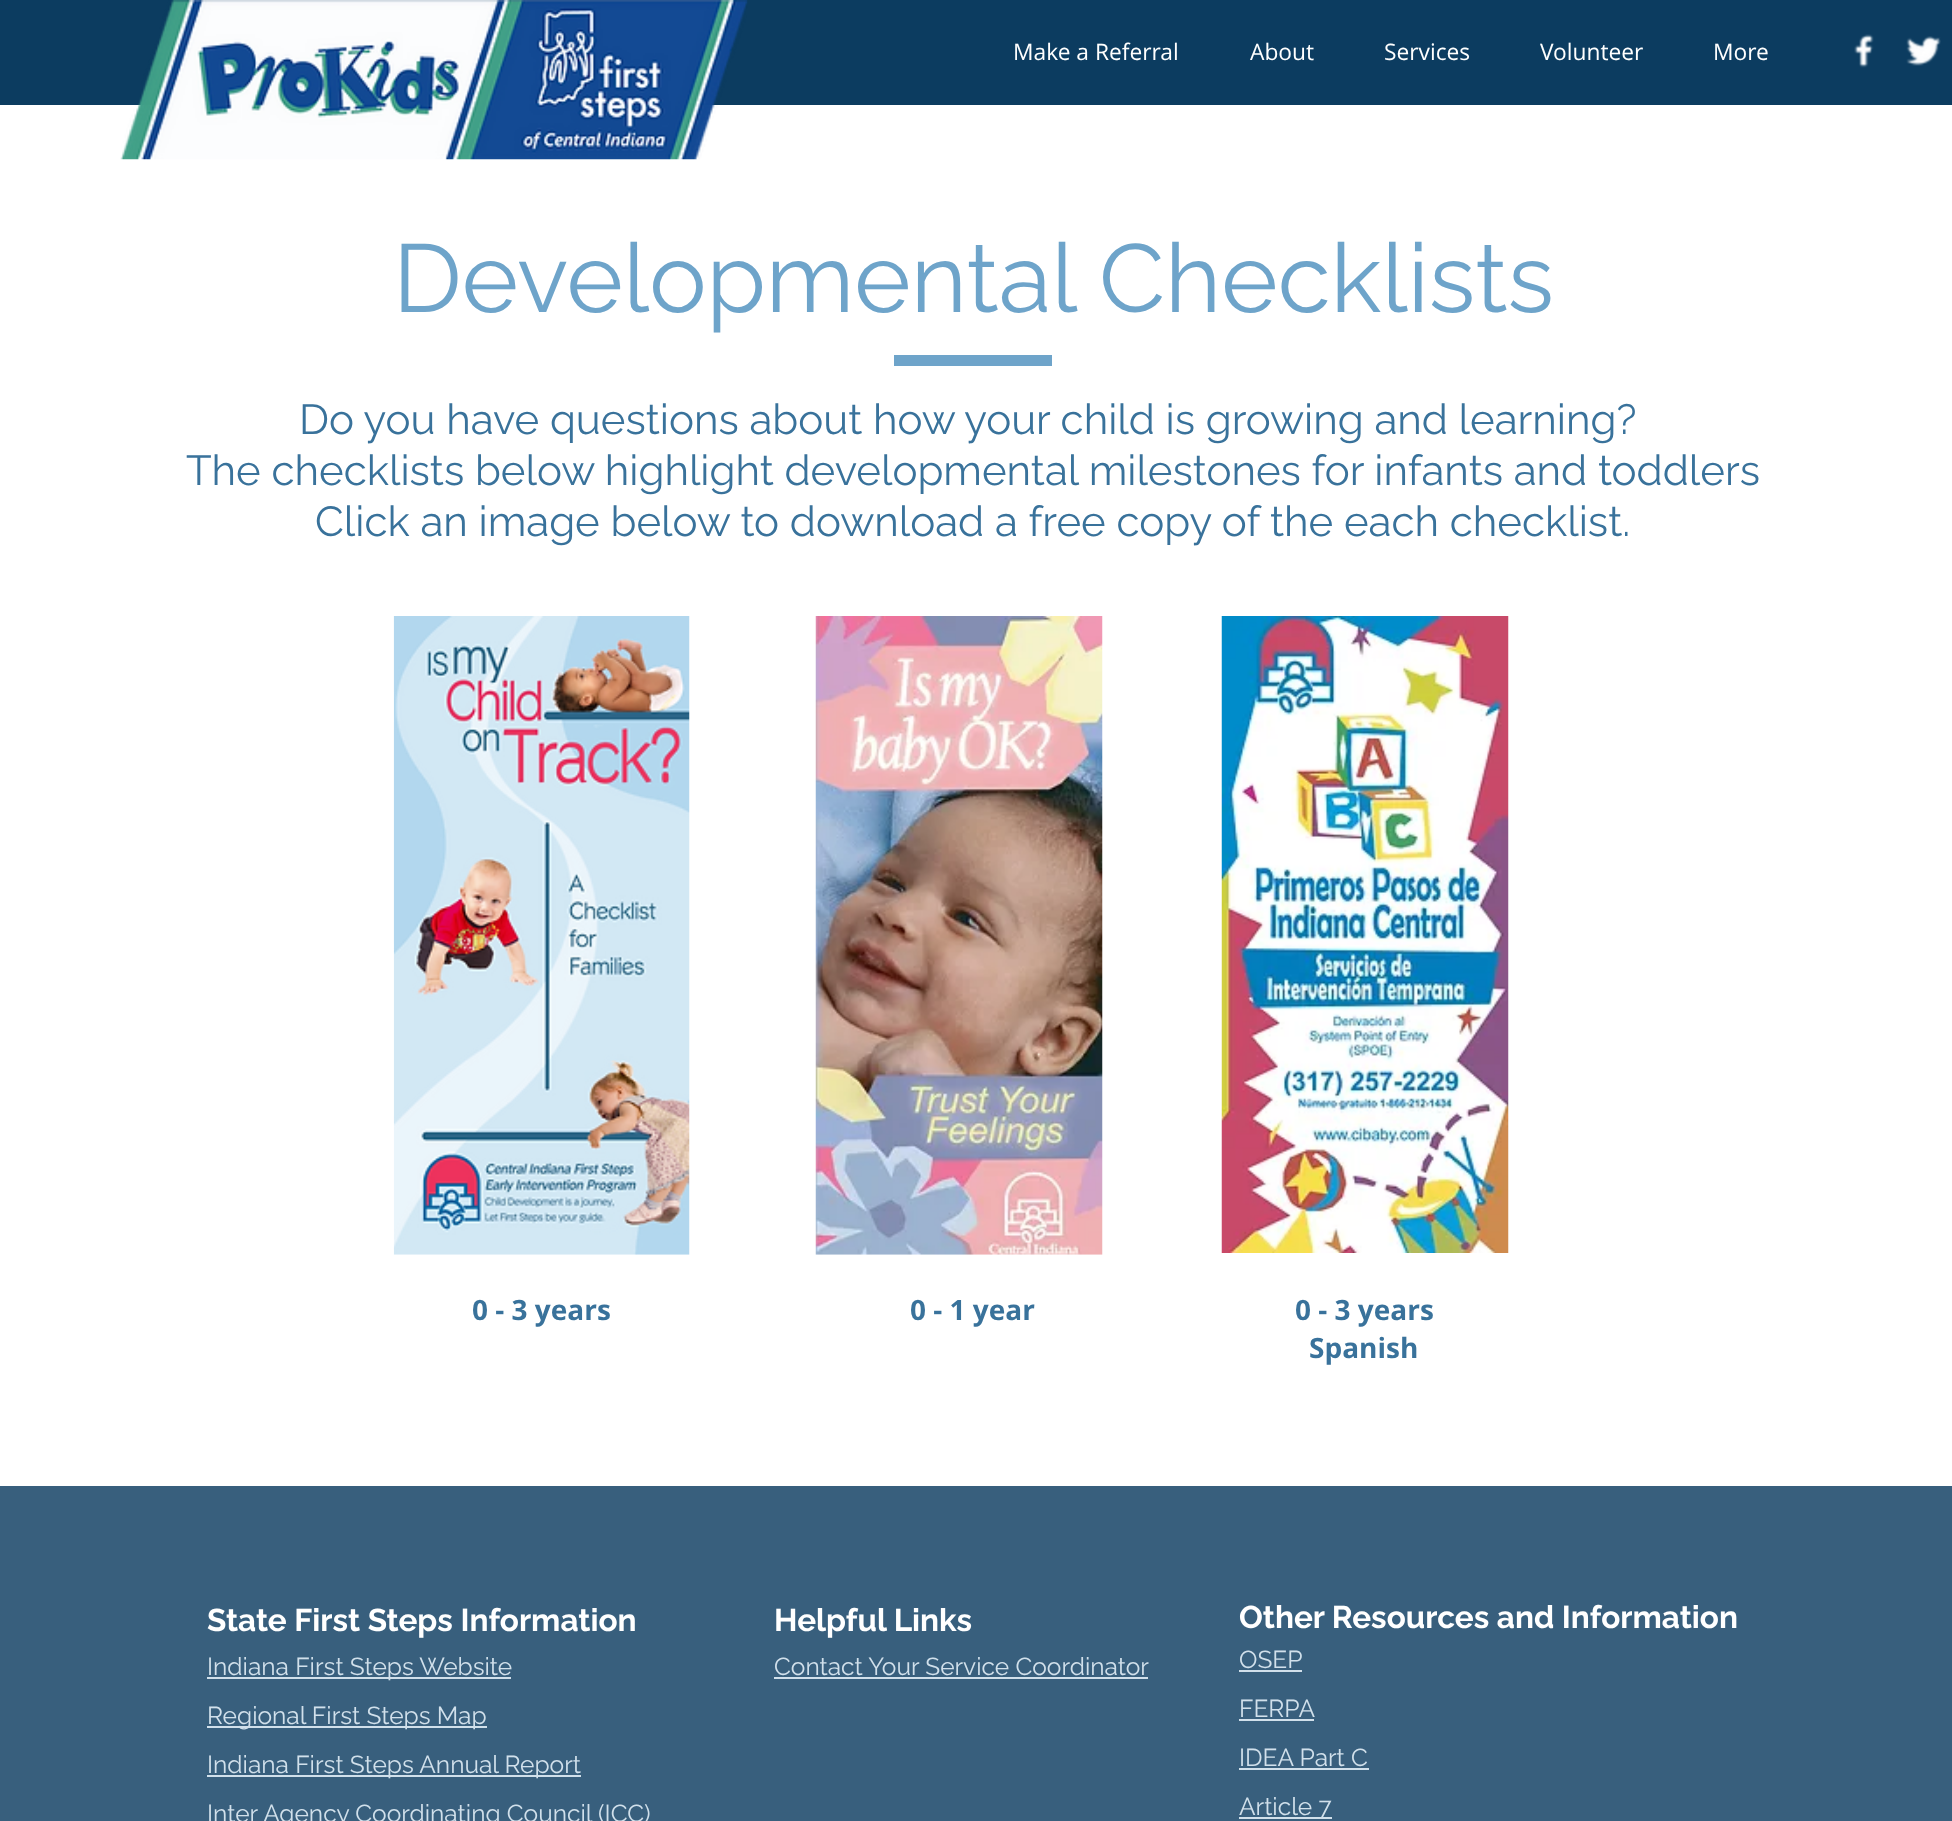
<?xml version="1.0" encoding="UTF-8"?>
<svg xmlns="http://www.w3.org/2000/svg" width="1952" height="1821">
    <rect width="100%" height="100%" fill="#FFFFFF"/>
    <rect x="0" y="0" width="1952" height="105" fill="#0C3C60"/>
    <image x="120" y="0" width="628" height="160" href="img_01.png"/>
    <text x="1013" y="60" font-family="Open Sans" font-size="22.75" fill="#FFFFFF">Make a Referral</text>
    <text x="1250" y="60" font-family="Open Sans" font-size="22.75" fill="#FFFFFF">About</text>
    <text x="1384" y="60" font-family="Open Sans" font-size="22.75" fill="#FFFFFF">Services</text>
    <text x="1540" y="60" font-family="Open Sans" font-size="22.75" fill="#FFFFFF">Volunteer</text>
    <text x="1713" y="60" font-family="Open Sans" font-size="22.75" fill="#FFFFFF">More</text>
    <image x="1854" y="34" width="20" height="34" href="img_02.png"/>
    <image x="1906" y="36" width="35" height="30" href="img_03.png"/>
    <text x="393" y="312" font-family="Raleway" font-size="96.25" fill="#6EA4CA">Developmental Checklists</text>
    <rect x="894" y="355" width="158" height="11" fill="#6EA4CA"/>
    <text x="299" y="434" font-family="Raleway" font-size="42" fill="#39729B">Do you have questions about how your child is growing and learning?</text>
    <text x="186" y="485" font-family="Raleway" font-size="42" fill="#39729B">The checklists below highlight developmental milestones for infants and toddlers</text>
    <text x="315" y="536" font-family="Raleway" font-size="42" fill="#39729B">Click an image below to download a free copy of the each checklist.</text>
    <image x="393" y="616" width="297" height="639" href="img_04.png"/>
    <image x="815" y="616" width="288" height="639" href="img_05.png"/>
    <image x="1221" y="616" width="288" height="637" href="img_06.png"/>
    <text x="472" y="1320" font-family="Open Sans" font-size="28" font-weight="700" fill="#39729B">0 - 3 years</text>
    <text x="910" y="1320" font-family="Open Sans" font-size="28" font-weight="700" fill="#39729B">0 - 1 year</text>
    <text x="1295" y="1320" font-family="Open Sans" font-size="28" font-weight="700" fill="#39729B">0 - 3 years</text>
    <text x="1309" y="1358" font-family="Open Sans" font-size="28" font-weight="700" fill="#39729B">Spanish</text>
    <rect x="0" y="1486" width="1952" height="335" fill="#385F7D"/>
    <text x="207" y="1631" font-family="Raleway" font-size="31.5" font-weight="700" fill="#FFFFFF">State First Steps Information</text>
    <rect x="207" y="1677" width="304" height="2" fill="#D1E0EB"/>
    <text x="207" y="1675" font-family="Raleway" font-size="24.5" fill="#D1E0EB">Indiana First Steps Website</text>
    <rect x="207" y="1726" width="280" height="2" fill="#D1E0EB"/>
    <text x="207" y="1724" font-family="Raleway" font-size="24.5" fill="#D1E0EB">Regional First Steps Map</text>
    <rect x="207" y="1775" width="374" height="2" fill="#D1E0EB"/>
    <text x="207" y="1773" font-family="Raleway" font-size="24.5" fill="#D1E0EB">Indiana First Steps Annual Report</text>
    <text x="207" y="1822" font-family="Raleway" font-size="24.5" fill="#D1E0EB">Inter Agency Coordinating Council (ICC)</text>
    <text x="774" y="1631" font-family="Raleway" font-size="31.5" font-weight="700" fill="#FFFFFF">Helpful Links</text>
    <text x="774" y="1675" font-family="Raleway" font-size="24.5" fill="#D1E0EB">Contact Your Service Coordinator</text>
    <rect x="774" y="1677" width="374" height="2" fill="#D1E0EB"/>
    <text x="1239" y="1628" font-family="Raleway" font-size="31.5" font-weight="700" fill="#FFFFFF">Other Resources and Information</text>
    <text x="1239" y="1668" font-family="Raleway" font-size="24.5" fill="#D1E0EB">OSEP</text>
    <rect x="1239" y="1670" width="63" height="2" fill="#D1E0EB"/>
    <text x="1239" y="1717" font-family="Raleway" font-size="24.5" fill="#D1E0EB">FERPA</text>
    <rect x="1239" y="1719" width="75" height="2" fill="#D1E0EB"/>
    <text x="1239" y="1766" font-family="Raleway" font-size="24.5" fill="#D1E0EB">IDEA Part C</text>
    <rect x="1239" y="1768" width="130" height="2" fill="#D1E0EB"/>
    <rect x="1239" y="1817" width="93" height="2" fill="#D1E0EB"/>
    <text x="1239" y="1815" font-family="Raleway" font-size="24.5" fill="#D1E0EB">Article 7</text>
</svg>
